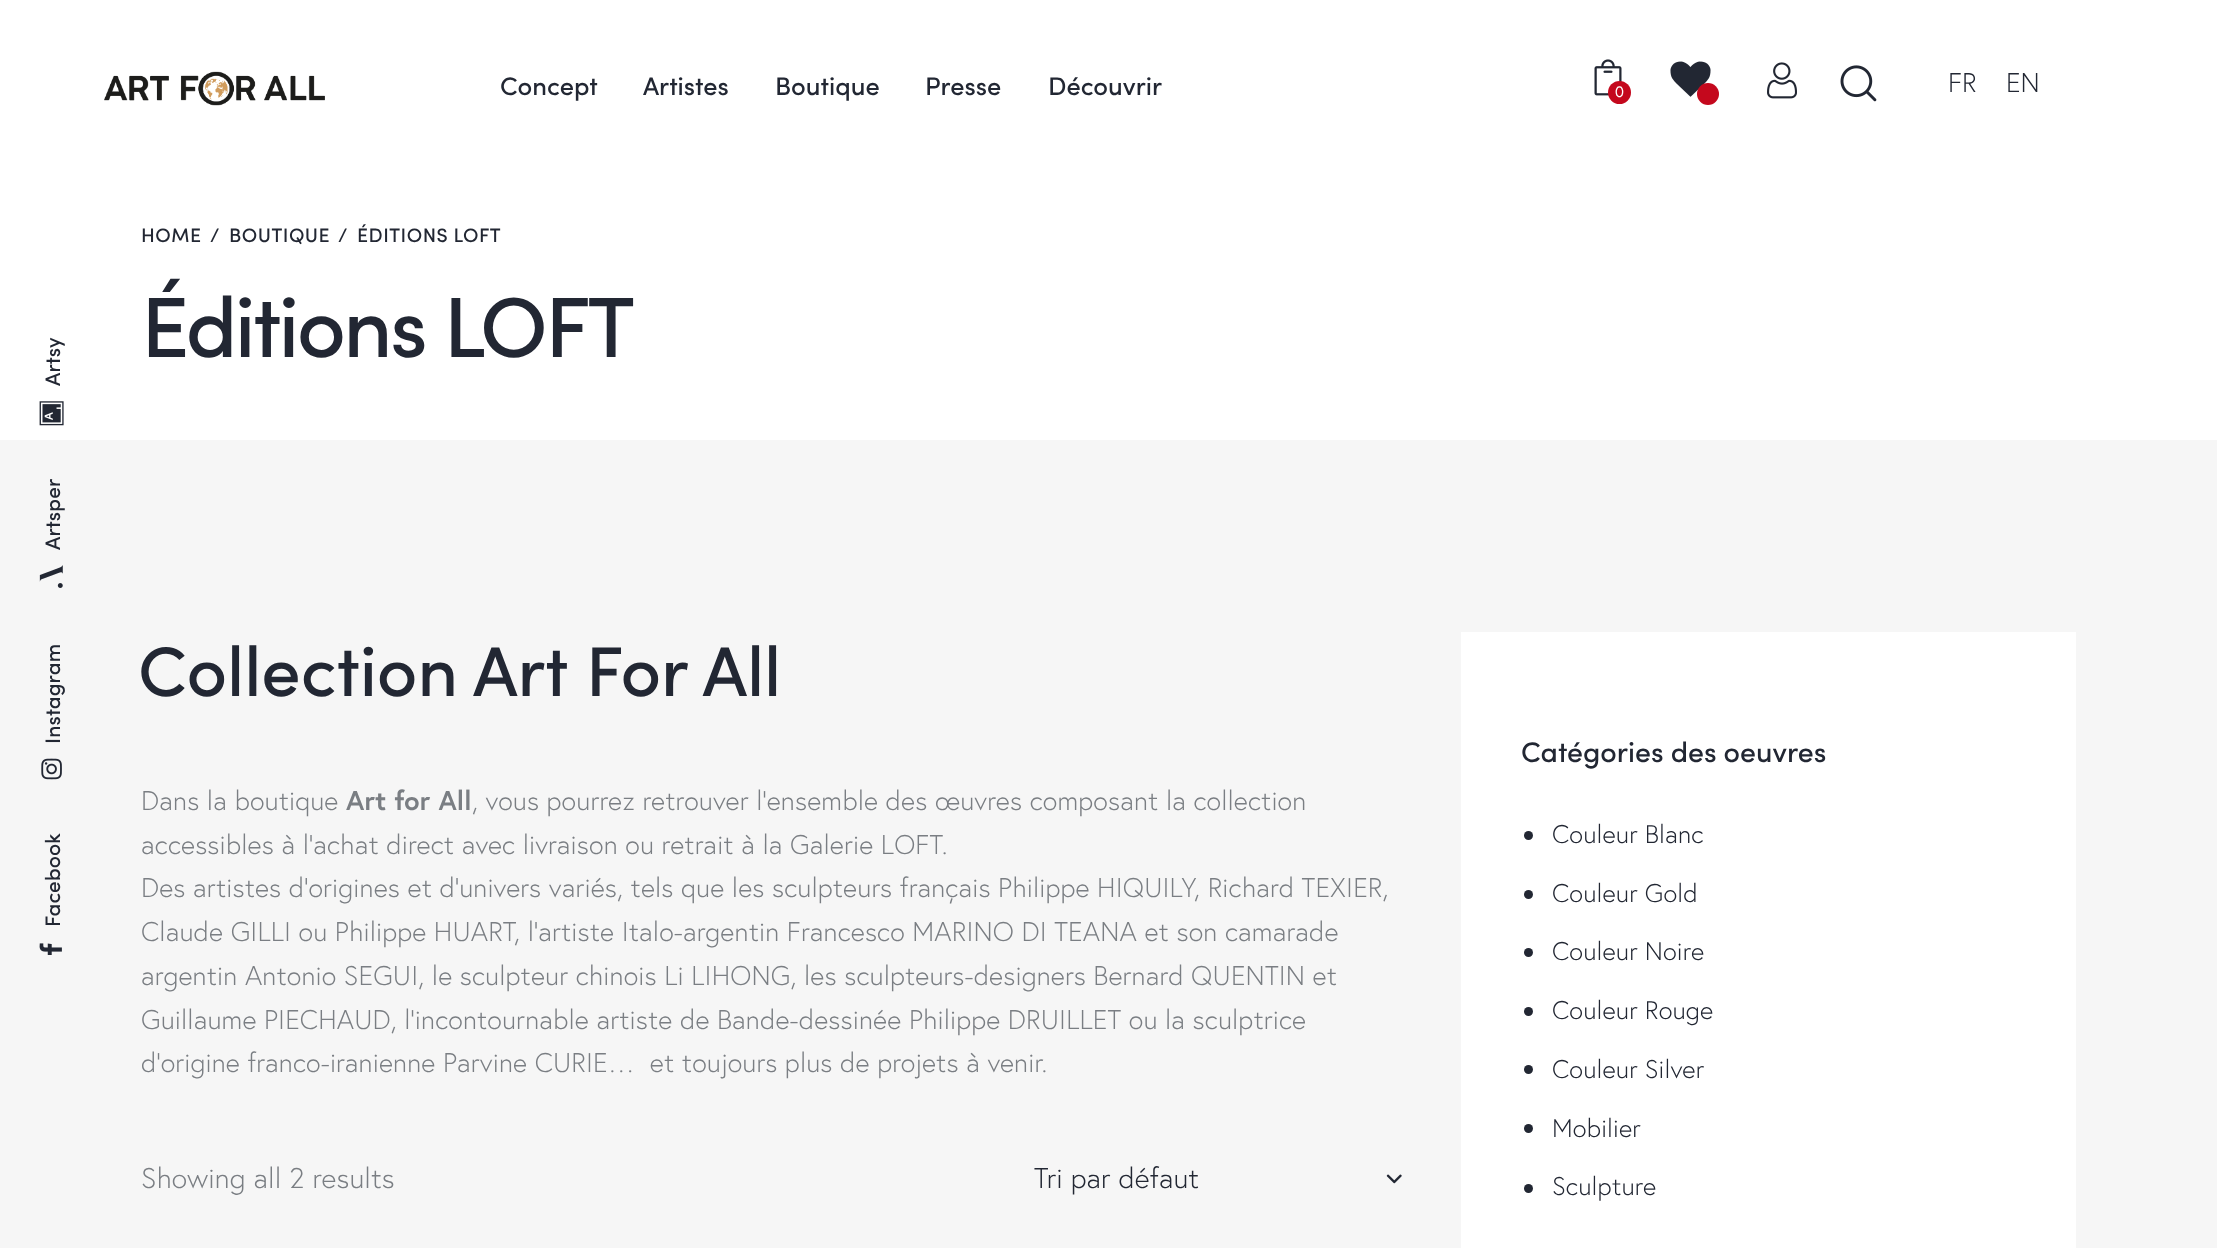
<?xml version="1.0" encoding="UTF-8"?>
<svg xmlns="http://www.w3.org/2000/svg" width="2217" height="1248">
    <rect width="100%" height="100%" fill="#F6F6F6"/>
    <rect x="0" y="0" width="2217" height="440" fill="#FFFFFF"/>
    <text x="60" y="386" transform="rotate(-90 60 386)" font-family="Sofia" font-size="21" font-weight="500" letter-spacing="0.15" fill="#222733">Artsy</text>
    <image x="39" y="401" width="25" height="25" href="img_01.png"/>
    <text x="60" y="550" transform="rotate(-90 60 550)" font-family="Sofia" font-size="21" font-weight="500" letter-spacing="0.15" fill="#222733">Artsper</text>
    <image x="39" y="565" width="24" height="23" href="img_02.png"/>
    <text x="60" y="744" transform="rotate(-90 60 744)" font-family="Sofia" font-size="21" font-weight="500" letter-spacing="0.15" fill="#222733">Instagram</text>
    <image x="41" y="758" width="21" height="22" href="img_03.png"/>
    <text x="60" y="927" transform="rotate(-90 60 927)" font-family="Sofia" font-size="21" font-weight="500" letter-spacing="0.15" fill="#222733">Facebook</text>
    <image x="39" y="943" width="23" height="12" href="img_04.png"/>
    <image x="104" y="71" width="221" height="35" href="img_05.png"/>
    <text x="500" y="95" font-family="Sofia" font-size="25.5" font-weight="500" fill="#222733">Concept</text>
    <text x="643" y="95" font-family="Sofia" font-size="25.5" font-weight="500" fill="#222733">Artistes</text>
    <text x="775" y="95" font-family="Sofia" font-size="25.5" font-weight="500" fill="#222733">Boutique</text>
    <text x="925" y="95" font-family="Sofia" font-size="25.5" font-weight="500" fill="#222733">Presse</text>
    <text x="1048" y="95" font-family="Sofia" font-size="25.5" font-weight="500" fill="#222733">Découvrir</text>
    <image x="1594" y="59" width="28" height="37" href="img_06.png"/>
    <circle cx="1619.5" cy="92.5" r="11.5" fill="#C4081D"/>
    <text x="1615" y="97" font-family="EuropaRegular" font-size="15" fill="#FFFFFF">0</text>
    <image x="1670" y="61" width="41" height="36" href="img_07.png"/>
    <circle cx="1708" cy="94" r="11" fill="#C4081D"/>
    <image x="1767" y="62" width="30" height="37" href="img_08.png"/>
    <image x="1840" y="65" width="37" height="37" href="img_09.png"/>
    <text x="1948" y="92" font-family="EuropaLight" font-size="27" font-weight="300" fill="#222733">FR</text>
    <text x="2006" y="92" font-family="EuropaLight" font-size="27" font-weight="300" fill="#222733">EN</text>
    <text x="141" y="242" font-family="Sofia" font-size="19.5" font-weight="500" letter-spacing="0.5" fill="#222733">HOME</text>
    <text x="210" y="242" font-family="Sofia" font-size="19.5" font-weight="500" letter-spacing="0.5" fill="#222733">/</text>
    <text x="229" y="242" font-family="Sofia" font-size="19.5" font-weight="500" letter-spacing="0.5" fill="#222733">BOUTIQUE</text>
    <text x="338" y="242" font-family="Sofia" font-size="19.5" font-weight="500" letter-spacing="0.5" fill="#222733">/</text>
    <text x="357" y="242" font-family="Sofia" font-size="19.5" font-weight="500" letter-spacing="0.5" fill="#222733">ÉDITIONS LOFT</text>
    <text x="141" y="357" font-family="Sofia" font-size="85.5" font-weight="500" letter-spacing="-2.75" fill="#222733">Éditions LOFT</text>
    <text x="138" y="696" font-family="Sofia" font-size="70.5" font-weight="500" letter-spacing="-0.1" fill="#222733">Collection</text>
    <text x="473" y="696" font-family="Sofia" font-size="70.5" font-weight="500" letter-spacing="-0.1" fill="#222733">Art For All</text>
    <text x="141" y="810" font-family="EuropaLight" font-size="27" font-weight="300" letter-spacing="0.15" fill="#7A7E83">Dans la boutique</text>
    <text x="346" y="810" font-family="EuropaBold" font-size="27" font-weight="700" letter-spacing="0.15" fill="#7A7E83">Art for All</text>
    <text x="472" y="810" font-family="EuropaLight" font-size="27" font-weight="300" letter-spacing="0.15" fill="#7A7E83">, vous pourrez retrouver l’ensemble des œuvres composant la collection</text>
    <text font-family="EuropaLight" font-size="27" font-weight="300" letter-spacing="0.15" fill="#7A7E83" xml:space="preserve"><tspan x="141" y="854">accessibles à l’achat direct avec livraison ou retrait à la Galerie LOFT.</tspan><tspan x="141" y="897">Des artistes d’origines et d’univers variés, tels que les sculpteurs français Philippe HIQUILY, Richard TEXIER,</tspan><tspan x="141" y="941">Claude GILLI ou Philippe HUART, l’artiste Italo-argentin Francesco MARINO DI TEANA et son camarade</tspan><tspan x="141" y="985">argentin Antonio SEGUI, le sculpteur chinois Li LIHONG, les sculpteurs-designers Bernard QUENTIN et</tspan><tspan x="141" y="1029">Guillaume PIECHAUD, l’incontournable artiste de Bande-dessinée Philippe DRUILLET ou la sculptrice</tspan><tspan x="141" y="1072">d’origine franco-iranienne Parvine CURIE…  et toujours plus de projets à venir.</tspan></text>
    <text x="141" y="1188" font-family="EuropaLight" font-size="28.5" font-weight="300" letter-spacing="0.15" fill="#7A7E83">Showing all 2 results</text>
    <text x="1034" y="1188" font-family="EuropaLight" font-size="28.5" font-weight="300" letter-spacing="0.15" fill="#222733">Tri par défaut</text>
    <image x="1386" y="1174" width="16" height="10" href="img_10.png"/>
    <rect x="1461" y="632" width="615" height="616" fill="#FFFFFF"/>
    <text x="1521" y="762" font-family="Sofia" font-size="28.5" font-weight="500" fill="#222733">Catégories des oeuvres</text>
    <circle cx="1528.5" cy="835.5" r="4.5" fill="#222733"/>
    <text x="1552" y="843" font-family="EuropaLight" font-size="25.5" font-weight="300" letter-spacing="0.15" fill="#222733">Couleur Blanc</text>
    <circle cx="1528.5" cy="894.5" r="4.5" fill="#222733"/>
    <text x="1552" y="902" font-family="EuropaLight" font-size="25.5" font-weight="300" letter-spacing="0.15" fill="#222733">Couleur Gold</text>
    <circle cx="1528.5" cy="952.5" r="4.5" fill="#222733"/>
    <text x="1552" y="960" font-family="EuropaLight" font-size="25.5" font-weight="300" letter-spacing="0.15" fill="#222733">Couleur Noire</text>
    <circle cx="1528.5" cy="1011.5" r="4.5" fill="#222733"/>
    <text x="1552" y="1019" font-family="EuropaLight" font-size="25.5" font-weight="300" letter-spacing="0.15" fill="#222733">Couleur Rouge</text>
    <circle cx="1528.5" cy="1069.5" r="4.5" fill="#222733"/>
    <text x="1552" y="1078" font-family="EuropaLight" font-size="25.5" font-weight="300" letter-spacing="0.15" fill="#222733">Couleur Silver</text>
    <circle cx="1528.5" cy="1128.5" r="4.5" fill="#222733"/>
    <text x="1552" y="1137" font-family="EuropaLight" font-size="25.5" font-weight="300" letter-spacing="0.15" fill="#222733">Mobilier</text>
    <circle cx="1528.5" cy="1188.5" r="4.5" fill="#222733"/>
    <text x="1552" y="1195" font-family="EuropaLight" font-size="25.5" font-weight="300" letter-spacing="0.15" fill="#222733">Sculpture</text>
</svg>
